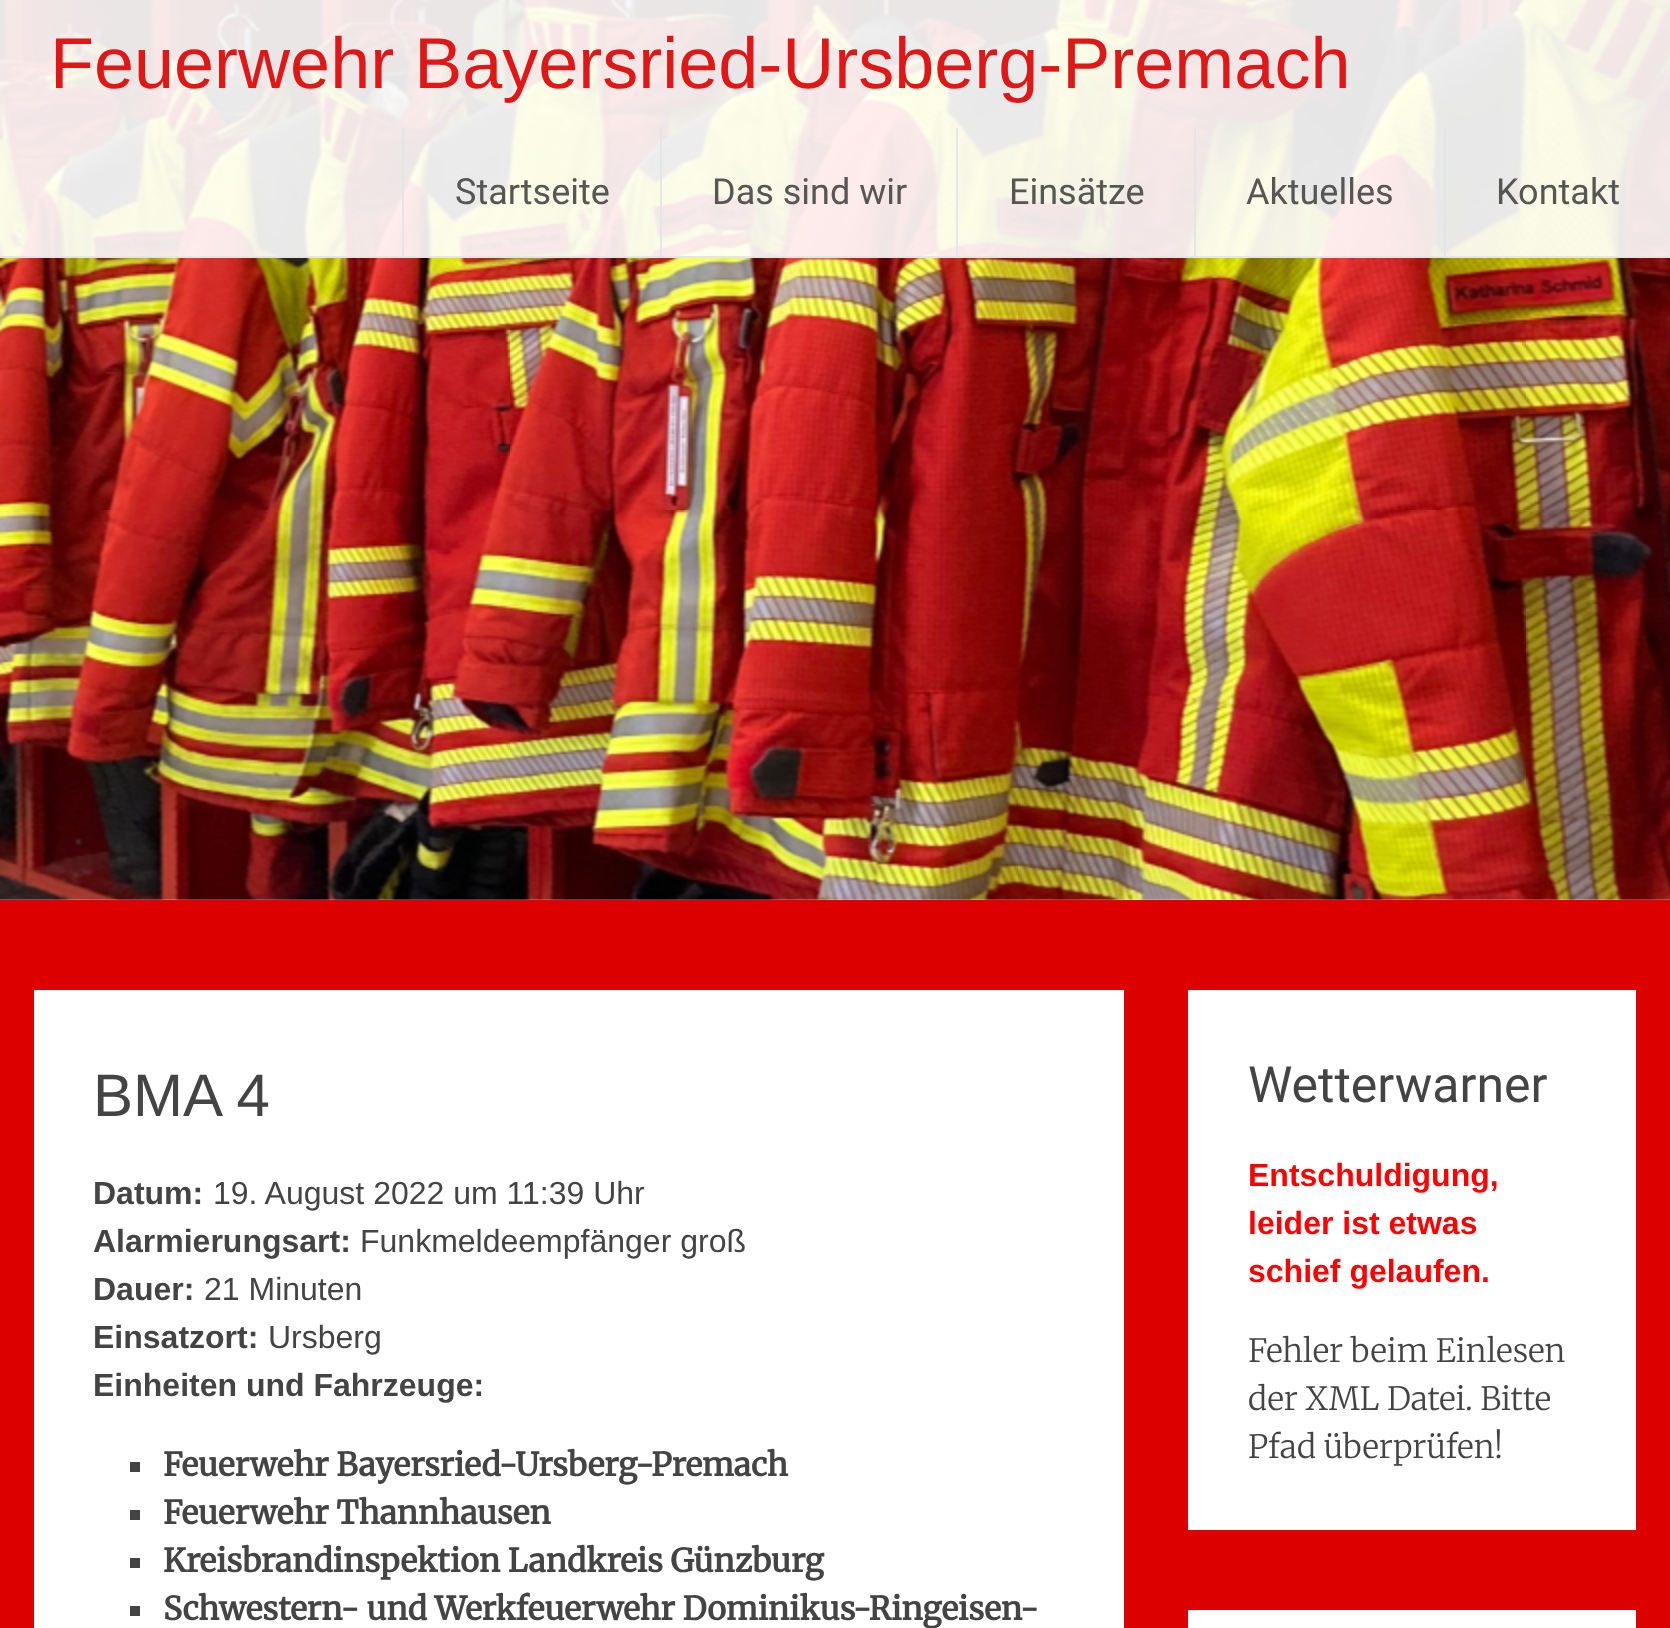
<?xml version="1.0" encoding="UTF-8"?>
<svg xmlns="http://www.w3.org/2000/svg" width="1670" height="1628">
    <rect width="100%" height="100%" fill="#FFFFFF"/>
    <image x="0" y="0" width="1670" height="900" href="img_01.png"/>
    <rect x="0" y="0" width="1670" height="258" fill="#FFFFFF" fill-opacity="0.9"/>
    <rect x="0" y="256" width="1670" height="2" fill="#E1E4E6" fill-opacity="0.9"/>
    <text x="50" y="88" font-family="Liberation Sans" font-size="72" fill="#DF1717">Feuerwehr Bayersried-Ursberg-Premach</text>
    <rect x="402" y="128" width="2" height="128" fill="#E1E4E6" fill-opacity="0.9"/>
    <text x="455" y="204" font-family="Roboto" font-size="36" fill="#565654">Startseite</text>
    <rect x="660" y="128" width="2" height="128" fill="#E1E4E6" fill-opacity="0.9"/>
    <text x="712" y="204" font-family="Roboto" font-size="36" fill="#565654">Das sind wir</text>
    <rect x="956" y="128" width="2" height="128" fill="#E1E4E6" fill-opacity="0.9"/>
    <text x="1009" y="204" font-family="Roboto" font-size="36" fill="#565654">Einsätze</text>
    <rect x="1194" y="128" width="2" height="128" fill="#E1E4E6" fill-opacity="0.9"/>
    <text x="1246" y="204" font-family="Roboto" font-size="36" fill="#565654">Aktuelles</text>
    <rect x="1444" y="128" width="2" height="128" fill="#E1E4E6" fill-opacity="0.9"/>
    <text x="1496" y="204" font-family="Roboto" font-size="36" fill="#565654">Kontakt</text>
    <rect x="0" y="900" width="1670" height="728" fill="#DD0000"/>
    <rect x="34" y="990" width="1090" height="638" fill="#FFFFFF"/>
    <text x="93" y="1116" font-family="Liberation Sans" font-size="60" fill="#444444">BMA 4</text>
    <text x="93" y="1204" font-family="Liberation Sans" font-size="32" font-weight="700" fill="#444444">Datum:</text>
    <text x="213" y="1204" font-family="Liberation Sans" font-size="32" fill="#444444">19. August 2022 um 11:39 Uhr</text>
    <text x="93" y="1252" font-family="Liberation Sans" font-size="32" font-weight="700" fill="#444444">Alarmierungsart:</text>
    <text x="360" y="1252" font-family="Liberation Sans" font-size="32" fill="#444444">Funkmeldeempfänger groß</text>
    <text x="93" y="1300" font-family="Liberation Sans" font-size="32" font-weight="700" fill="#444444">Dauer:</text>
    <text x="204" y="1300" font-family="Liberation Sans" font-size="32" fill="#444444">21 Minuten</text>
    <text x="93" y="1348" font-family="Liberation Sans" font-size="32" font-weight="700" fill="#444444">Einsatzort:</text>
    <text x="268" y="1348" font-family="Liberation Sans" font-size="32" fill="#444444">Ursberg</text>
    <text x="93" y="1396" font-family="Liberation Sans" font-size="32" font-weight="700" fill="#444444">Einheiten und Fahrzeuge:</text>
    <rect x="130" y="1462" width="10" height="10" fill="#444444"/>
    <text x="163" y="1476" font-family="Merriweather" font-size="32" font-weight="700" fill="#444444">Feuerwehr Bayersried-Ursberg-Premach</text>
    <rect x="130" y="1510" width="10" height="10" fill="#444444"/>
    <text x="163" y="1524" font-family="Merriweather" font-size="32" font-weight="700" fill="#444444">Feuerwehr Thannhausen</text>
    <rect x="130" y="1558" width="10" height="10" fill="#444444"/>
    <text x="163" y="1572" font-family="Merriweather" font-size="32" font-weight="700" fill="#444444">Kreisbrandinspektion Landkreis Günzburg</text>
    <rect x="130" y="1606" width="10" height="10" fill="#444444"/>
    <text x="163" y="1620" font-family="Merriweather" font-size="32" font-weight="700" fill="#444444">Schwestern- und Werkfeuerwehr Dominikus-Ringeisen-</text>
    <rect x="1188" y="990" width="448" height="540" fill="#FFFFFF"/>
    <text x="1248" y="1102" font-family="Roboto" font-size="50" fill="#444444">Wetterwarner</text>
    <text font-family="Liberation Sans" font-size="32" font-weight="700" fill="#FF0000">
        <tspan x="1248" y="1186">Entschuldigung,</tspan>
        <tspan x="1248" y="1234">leider ist etwas</tspan>
        <tspan x="1248" y="1282">schief gelaufen.</tspan>
    </text>
    <text font-family="Merriweather" font-size="32" font-weight="300" fill="#444444">
        <tspan x="1248" y="1362">Fehler beim Einlesen</tspan>
        <tspan x="1248" y="1410">der XML Datei. Bitte</tspan>
        <tspan x="1248" y="1458">Pfad überprüfen!</tspan>
    </text>
    <rect x="1188" y="1610" width="448" height="18" fill="#FFFFFF"/>
</svg>
